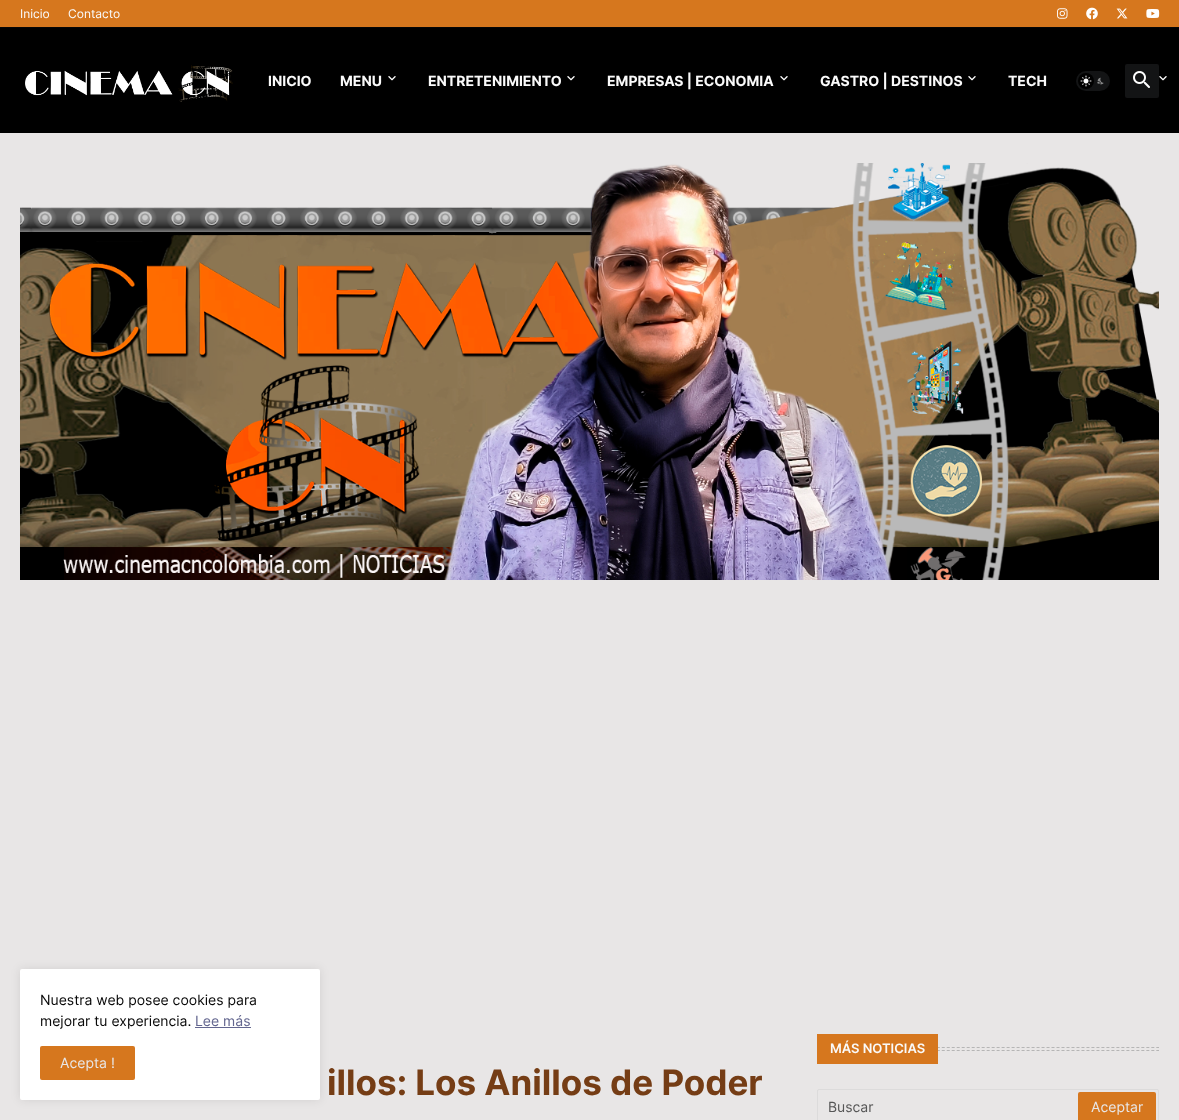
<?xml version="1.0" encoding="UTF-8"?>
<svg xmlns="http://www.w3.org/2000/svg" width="1179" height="1120">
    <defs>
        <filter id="blur1" x="-50%" y="-200%" width="200%" height="500%"><feGaussianBlur stdDeviation="5"/></filter>
    </defs>
    <rect width="100%" height="100%" fill="#E8E6E6"/>
    <rect x="0" y="0" width="1179" height="27" fill="#D6771E"/>
    <rect x="0" y="27" width="1179" height="1" fill="#050505"/>
    <text x="20" y="18" font-family="Inter" font-size="12" fill="#FAFAFA">Inicio</text>
    <text x="68" y="18" font-family="Inter" font-size="12" fill="#FAFAFA">Contacto</text>
    <image x="1057" y="8" width="11" height="11" href="img_01.png"/>
    <image x="1086" y="7" width="12" height="13" href="img_02.png"/>
    <image x="1116" y="8" width="12" height="11" href="img_03.png"/>
    <image x="1146" y="9" width="14" height="9" href="img_04.png"/>
    <rect x="0" y="28" width="1179" height="105" fill="#000000"/>
    <image x="25" y="65" width="208" height="37" href="img_05.png"/>
    <text x="268" y="86" font-family="Inter" font-size="14" font-weight="700" fill="#FAFAFA">INICIO</text>
    <text x="340" y="86" font-family="Inter" font-size="14" font-weight="700" fill="#FAFAFA">MENU</text>
    <image x="388" y="76" width="8" height="5" href="img_06.png"/>
    <text x="428" y="86" font-family="Inter" font-size="14" font-weight="700" fill="#FAFAFA">ENTRETENIMIENTO</text>
    <image x="567" y="76" width="8" height="5" href="img_06.png"/>
    <text x="607" y="86" font-family="Inter" font-size="14" font-weight="700" fill="#FAFAFA">EMPRESAS | ECONOMIA</text>
    <image x="780" y="76" width="8" height="5" href="img_06.png"/>
    <text x="820" y="86" font-family="Inter" font-size="14" font-weight="700" fill="#FAFAFA">GASTRO | DESTINOS</text>
    <image x="968" y="76" width="8" height="5" href="img_06.png"/>
    <text x="1008" y="86" font-family="Inter" font-size="14" font-weight="700" fill="#FAFAFA">TECH</text>
    <image x="1159" y="76" width="8" height="5" href="img_06.png"/>
    <rect x="1076" y="71" width="34" height="20" rx="10" fill="#131415"/>
    <circle cx="1086" cy="81" r="8" fill="#000000"/>
    <image x="1080" y="75" width="12" height="12" href="img_07.png"/>
    <image x="1097" y="77" width="7" height="8" href="img_08.png"/>
    <rect x="1125" y="64" width="34" height="34" rx="2" fill="#131415"/>
    <image x="1133" y="71" width="17" height="17" href="img_09.png"/>
    <image x="20" y="163" width="1139" height="417" href="img_10.png"/>
    <rect x="20" y="969" width="300" height="131" rx="2" fill="#000000" fill-opacity="0.1" filter="url(#blur1)"/>
    <rect x="20" y="969" width="300" height="131" rx="2" fill="#FFFFFF"/>
    <text font-family="Inter" font-size="14" fill="#080808">
        <tspan x="40" y="1005">Nuestra web posee cookies para</tspan>
        <tspan x="40" y="1026">mejorar tu experiencia.</tspan>
    </text>
    <text x="195" y="1026" font-family="Inter" font-size="14" fill="#63668F">Lee más</text>
    <rect x="195" y="1027" width="56" height="1" fill="#63668F"/>
    <rect x="40" y="1046" width="95" height="34" rx="2" fill="#D6771E"/>
    <text x="60" y="1068" font-family="Inter" font-size="14" fill="#E8E6E6">Acepta !</text>
    <text x="327" y="1095" font-family="Inter" font-size="35" font-weight="700" fill="#753D15">illos: Los Anillos de Poder</text>
    <path d="M 817 1047.5 H 1159" fill="none" stroke="#B5B5B5" stroke-dasharray="3 1.99"/>
    <path d="M 817 1050.5 H 1159" fill="none" stroke="#B5B5B5" stroke-dasharray="3 1.99"/>
    <rect x="817" y="1034" width="121" height="30" fill="#D6771E"/>
    <text x="830" y="1053" font-family="Inter" font-size="13" font-weight="600" fill="#FAFAFA">MÁS NOTICIAS</text>
    <rect x="817.5" y="1089.5" width="341" height="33" rx="1.5" fill="none" stroke="#DCDBDB"/>
    <text x="828" y="1112" font-family="Inter" font-size="14" fill="#565656">Buscar</text>
    <rect x="1078" y="1092" width="78" height="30" rx="2" fill="#D6771E"/>
    <text x="1091" y="1112" font-family="Inter" font-size="14" fill="#E8E6E6">Aceptar</text>
</svg>
